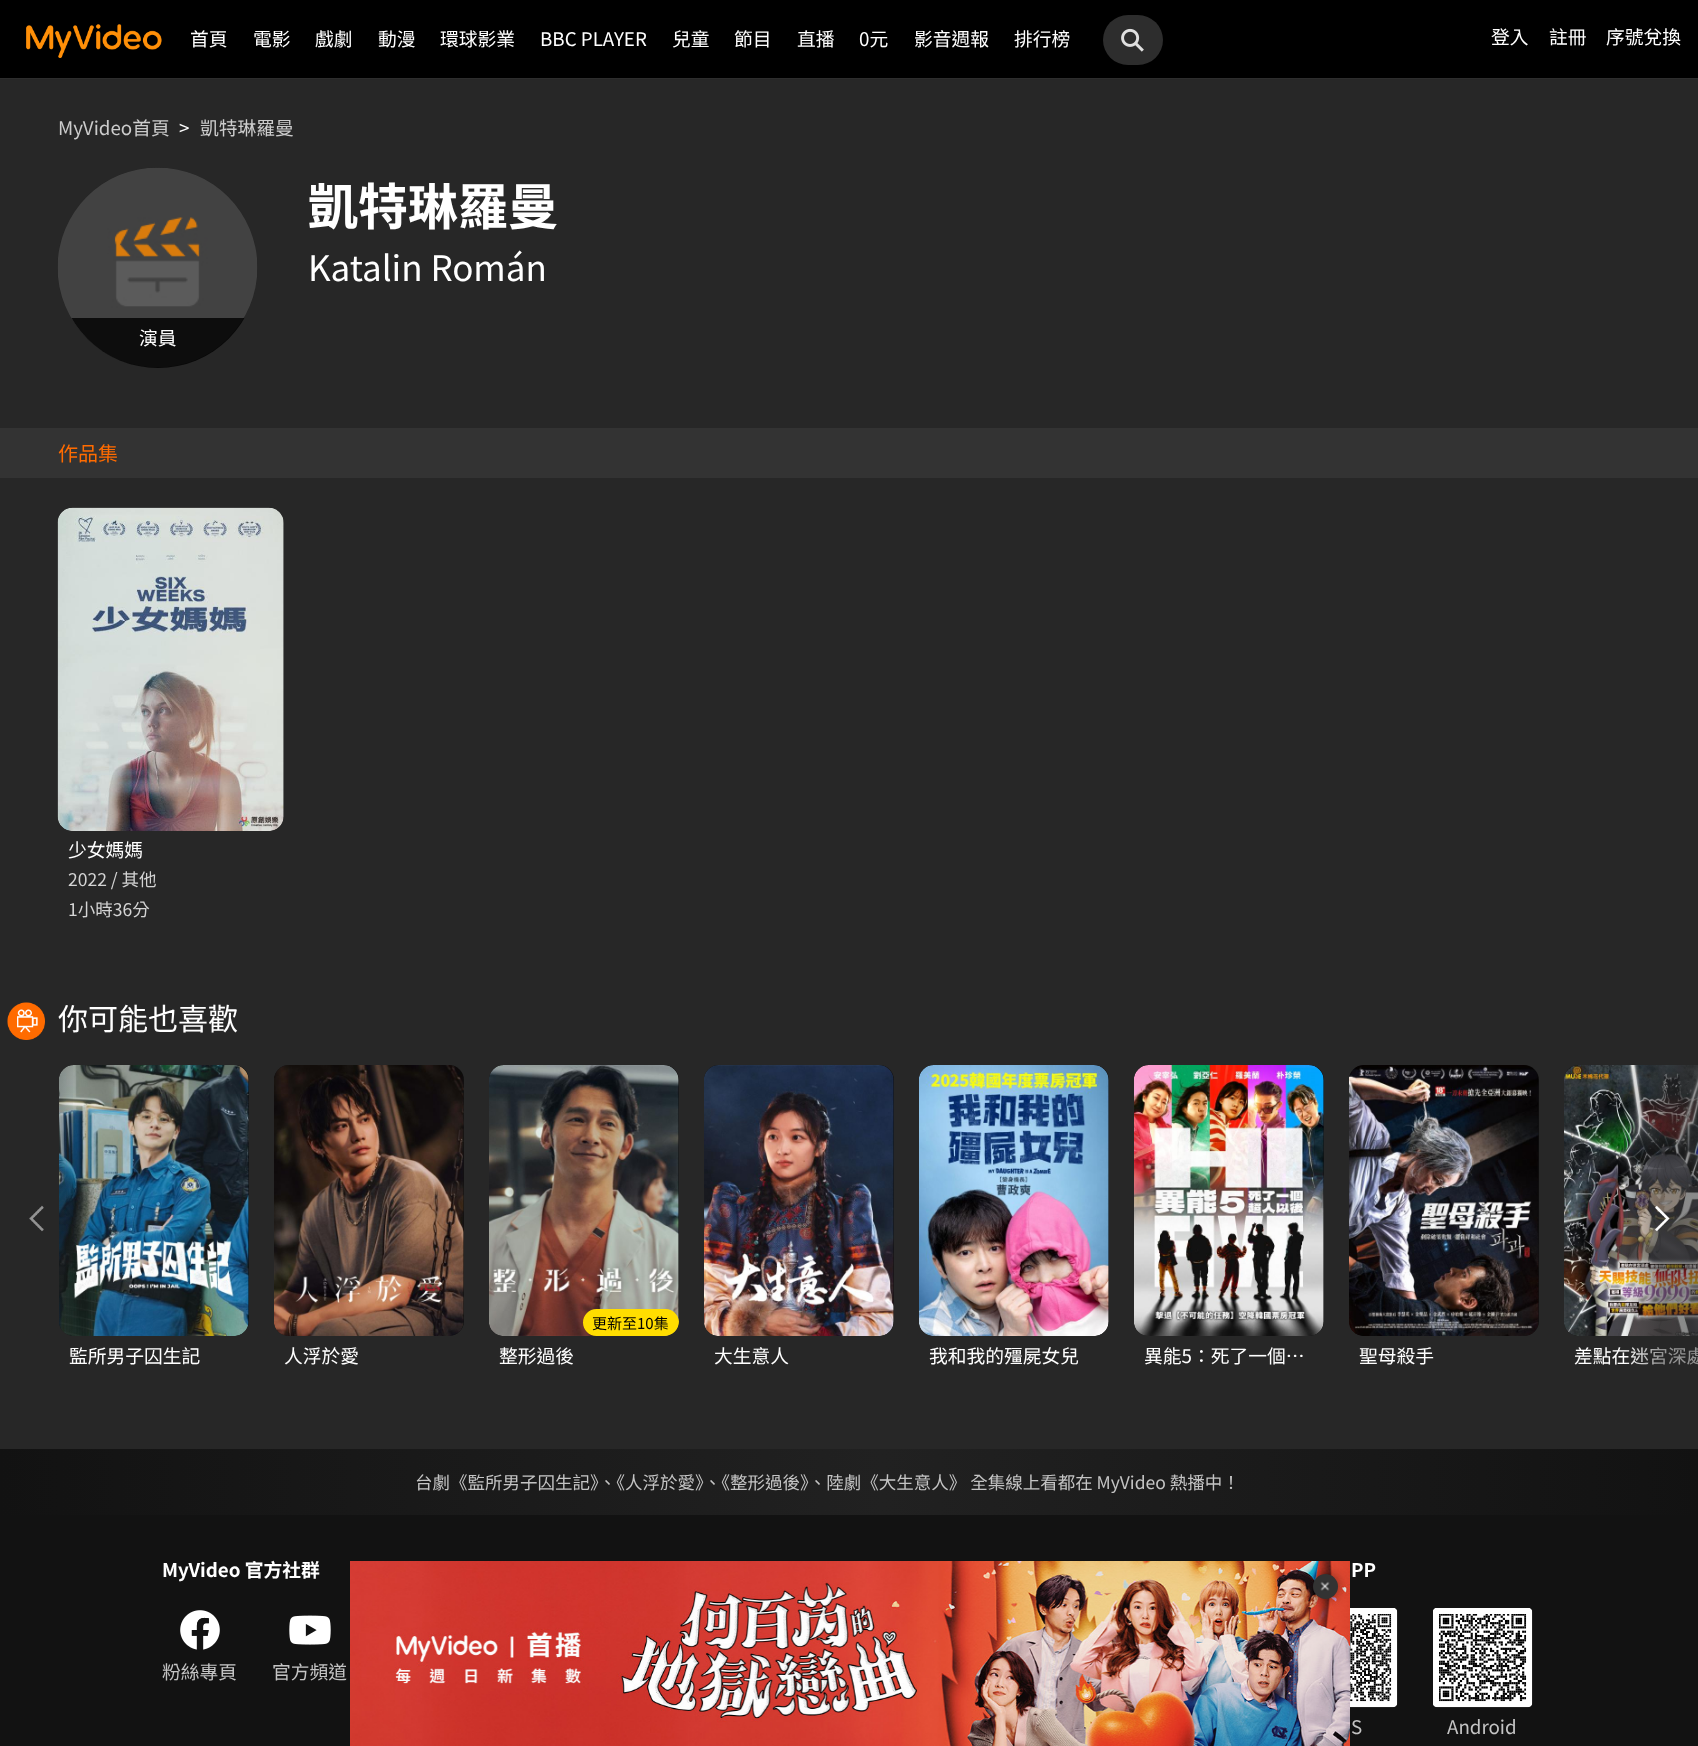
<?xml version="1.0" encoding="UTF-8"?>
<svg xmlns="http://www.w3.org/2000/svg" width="1698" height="1746">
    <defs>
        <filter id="blur1" x="-50%" y="-200%" width="200%" height="500%"><feGaussianBlur stdDeviation="6"/></filter>
        <clipPath id="clip1"><rect x="58" y="168" width="200" height="200" rx="100"/></clipPath>
        <linearGradient id="g1" gradientUnits="userSpaceOnUse" x1="0" y1="1218" x2="75" y2="1218"><stop offset="0.5" stop-color="#272727" stop-opacity="0.5"/><stop offset="1" stop-color="#272727" stop-opacity="0"/></linearGradient>
        <linearGradient id="g2" gradientUnits="userSpaceOnUse" x1="1624" y1="1218" x2="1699" y2="1218"><stop offset="0" stop-color="#272727" stop-opacity="0"/><stop offset="0.5" stop-color="#272727" stop-opacity="0.5"/></linearGradient>
        <linearGradient id="g3" gradientUnits="userSpaceOnUse" x1="0" y1="1482" x2="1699" y2="1482"><stop offset="0" stop-color="#121212"/><stop offset="0.52" stop-color="#212121"/><stop offset="1" stop-color="#121212"/></linearGradient>
    </defs>
    <rect width="100%" height="100%" fill="#272727"/>
    <rect x="0" y="0" width="1698" height="78" fill="#000000"/>
    <rect x="0" y="78" width="1698" height="1" fill="#2D2D2D"/>
    <image x="26" y="24" width="136" height="34" href="img_01.png"/>
    <text x="190" y="46" font-family="Noto Sans TC" font-size="18.75" fill="#FFFFFF">首頁</text>
    <text x="253" y="46" font-family="Noto Sans TC" font-size="18.75" fill="#FFFFFF">電影</text>
    <text x="315" y="46" font-family="Noto Sans TC" font-size="18.75" fill="#FFFFFF">戲劇</text>
    <text x="378" y="46" font-family="Noto Sans TC" font-size="18.75" fill="#FFFFFF">動漫</text>
    <text x="440" y="46" font-family="Noto Sans TC" font-size="18.75" fill="#FFFFFF">環球影業</text>
    <text x="540" y="46" font-family="Noto Sans TC" font-size="18.75" fill="#FFFFFF">BBC PLAYER</text>
    <text x="672" y="46" font-family="Noto Sans TC" font-size="18.75" fill="#FFFFFF">兒童</text>
    <text x="734" y="46" font-family="Noto Sans TC" font-size="18.75" fill="#FFFFFF">節目</text>
    <text x="797" y="46" font-family="Noto Sans TC" font-size="18.75" fill="#FFFFFF">直播</text>
    <text x="859" y="46" font-family="Noto Sans TC" font-size="18.75" fill="#FFFFFF">0元</text>
    <text x="914" y="46" font-family="Noto Sans TC" font-size="18.75" fill="#FFFFFF">影音週報</text>
    <text x="1014" y="46" font-family="Noto Sans TC" font-size="18.75" fill="#FFFFFF">排行榜</text>
    <rect x="1103" y="15" width="60" height="50" rx="25" fill="#2D2D2D"/>
    <image x="1121" y="28" width="23" height="24" href="img_02.png"/>
    <text x="1491" y="44" font-family="Noto Sans TC" font-size="18.75" fill="#FFFFFF">登入</text>
    <text x="1549" y="44" font-family="Noto Sans TC" font-size="18.75" fill="#FFFFFF">註冊</text>
    <text x="1606" y="44" font-family="Noto Sans TC" font-size="18.75" fill="#FFFFFF">序號兌換</text>
    <rect x="0" y="1515" width="1698" height="231" fill="#121212"/>
    <image x="350" y="1561" width="1000" height="185" href="img_04.png"/>
    <image x="1350" y="1608" width="48" height="100" href="img_21.png"/>
    <rect x="1313" y="1574" width="25" height="25" rx="12.5" fill="#000000" fill-opacity="0.5" filter="url(#blur1)"/>
    <circle cx="1325.5" cy="1586.5" r="12.5" fill="#333333"/>
    <image x="1320" y="1581" width="10" height="10" href="img_03.png"/>
    <text x="58" y="135" font-family="Noto Sans TC" font-size="18.75" fill="#CCCCCC">MyVideo首頁</text>
    <text x="179" y="135" font-family="Noto Sans TC" font-size="18.75" fill="#FFFFFF">&gt;</text>
    <text x="200" y="135" font-family="Noto Sans TC" font-size="18.75" fill="#CCCCCC">凱特琳羅曼</text>
    <text x="308" y="225" font-family="Noto Sans TC" font-size="50" font-weight="700" fill="#FFFFFF">凱特琳羅曼</text>
    <text x="308" y="281" font-family="Noto Sans TC" font-size="35" fill="#FFFFFF">Katalin Román</text>
    <image x="57" y="167" width="201" height="201" href="img_05.png"/>
    <image x="57" y="167" width="201" height="201" href="img_06.png"/>
    <g clip-path="url(#clip1)">
        <rect x="71" y="318" width="174" height="50" fill="#000000" fill-opacity="0.8"/>
    </g>
    <text x="139" y="345" font-family="Noto Sans TC" font-size="18.75" fill="#FFFFFF">演員</text>
    <rect x="0" y="428" width="1698" height="50" fill="#333333"/>
    <text x="58" y="461" font-family="Noto Sans TC" font-size="20" fill="#FF6B00">作品集</text>
    <image x="57" y="507" width="227" height="324" href="img_07.png"/>
    <text x="68" y="857" font-family="Noto Sans TC" font-size="18.75" fill="#FFFFFF">少女媽媽</text>
    <text font-family="Noto Sans TC" font-size="17.5" fill="#D4D4D4">
        <tspan x="68" y="886">2022 / 其他</tspan>
        <tspan x="68" y="916">1小時36分</tspan>
    </text>
    <image x="7" y="1002" width="38" height="38" href="img_08.png"/>
    <text x="58" y="1030" font-family="Noto Sans TC" font-size="30" fill="#FFFFFF">你可能也喜歡</text>
    <rect x="59" y="1065" width="190" height="271" rx="15" fill="#121212"/>
    <image x="59" y="1065" width="190" height="271" href="img_11.png"/>
    <text x="69" y="1363" font-family="Noto Sans TC" font-size="18.75" fill="#FFFFFF">監所男子囚生記</text>
    <rect x="59" y="1065" width="14" height="299" fill="url(#g1)"/>
    <image x="29" y="1205" width="15" height="27" href="img_09.png"/>
    <path d="M 1579 1065 H 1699 V 1336 H 1579 C 1570.5 1336 1564 1329.5 1564 1321 V 1080 C 1564 1071.5 1570.5 1065 1579 1065 Z" fill="#121212"/>
    <image x="1564" y="1065" width="134" height="271" href="img_18.png"/>
    <text x="1574" y="1363" font-family="Noto Sans TC" font-size="18.75" fill="#FFFFFF">差點在迷宮深處</text>
    <rect x="1626" y="1065" width="72" height="300" fill="url(#g2)"/>
    <image x="1654" y="1205" width="16" height="27" href="img_10.png"/>
    <rect x="274" y="1065" width="190" height="271" rx="15" fill="#121212"/>
    <image x="274" y="1065" width="190" height="271" href="img_12.png"/>
    <text x="284" y="1363" font-family="Noto Sans TC" font-size="18.75" fill="#FFFFFF">人浮於愛</text>
    <rect x="489" y="1065" width="190" height="271" rx="15" fill="#121212"/>
    <image x="489" y="1065" width="190" height="271" href="img_13.png"/>
    <path d="M 596.5 1309 H 665.5 C 673 1309 679 1315 679 1322.5 V 1321 C 679 1329.5 672.5 1336 664 1336 H 596.5 C 589 1336 583 1330 583 1322.5 C 583 1315 589 1309 596.5 1309 Z" fill="#FFDD00"/>
    <text x="592" y="1329" font-family="Noto Sans TC" font-size="15" fill="#000000">更新至10集</text>
    <text x="499" y="1363" font-family="Noto Sans TC" font-size="18.75" fill="#FFFFFF">整形過後</text>
    <rect x="704" y="1065" width="190" height="271" rx="15" fill="#121212"/>
    <image x="704" y="1065" width="190" height="271" href="img_14.png"/>
    <text x="714" y="1363" font-family="Noto Sans TC" font-size="18.75" fill="#FFFFFF">大生意人</text>
    <rect x="919" y="1065" width="190" height="271" rx="15" fill="#121212"/>
    <image x="919" y="1065" width="190" height="271" href="img_15.png"/>
    <text x="929" y="1363" font-family="Noto Sans TC" font-size="18.75" fill="#FFFFFF">我和我的殭屍女兒</text>
    <rect x="1134" y="1065" width="190" height="271" rx="15" fill="#121212"/>
    <image x="1134" y="1065" width="190" height="271" href="img_16.png"/>
    <text x="1144" y="1363" font-family="Noto Sans TC" font-size="18.75" fill="#FFFFFF">異能5：死了一個…</text>
    <rect x="1349" y="1065" width="190" height="271" rx="15" fill="#121212"/>
    <image x="1349" y="1065" width="190" height="271" href="img_17.png"/>
    <text x="1359" y="1363" font-family="Noto Sans TC" font-size="18.75" fill="#FFFFFF">聖母殺手</text>
    <rect x="0" y="1449" width="1698" height="66" fill="url(#g3)"/>
    <text x="415" y="1489" font-family="Noto Sans TC" font-size="17.5" fill="#C4C4C4">台劇《監所男子囚生記》、《人浮於愛》、《整形過後》、陸劇《大生意人》 全集線上看都在 MyVideo 熱播中！</text>
    <text x="162" y="1577" font-family="Noto Sans TC" font-size="18.75" font-weight="700" fill="#FFFFFF">MyVideo 官方社群</text>
    <image x="180" y="1610" width="40" height="40" href="img_19.png"/>
    <text x="162" y="1679" font-family="Noto Sans TC" font-size="18.75" fill="#C4C4C4">粉絲專頁</text>
    <image x="289" y="1615" width="42" height="30" href="img_20.png"/>
    <text x="272" y="1679" font-family="Noto Sans TC" font-size="18.75" fill="#C4C4C4">官方頻道</text>
    <text x="1351" y="1577" font-family="Noto Sans TC" font-size="18.75" font-weight="700" fill="#FFFFFF">PP</text>
    <text x="1351" y="1734" font-family="Noto Sans TC" font-size="18.75" fill="#C4C4C4">S</text>
    <image x="1433" y="1608" width="100" height="100" href="img_22.png"/>
    <text x="1447" y="1734" font-family="Noto Sans TC" font-size="18.75" fill="#C4C4C4">Android</text>
</svg>
